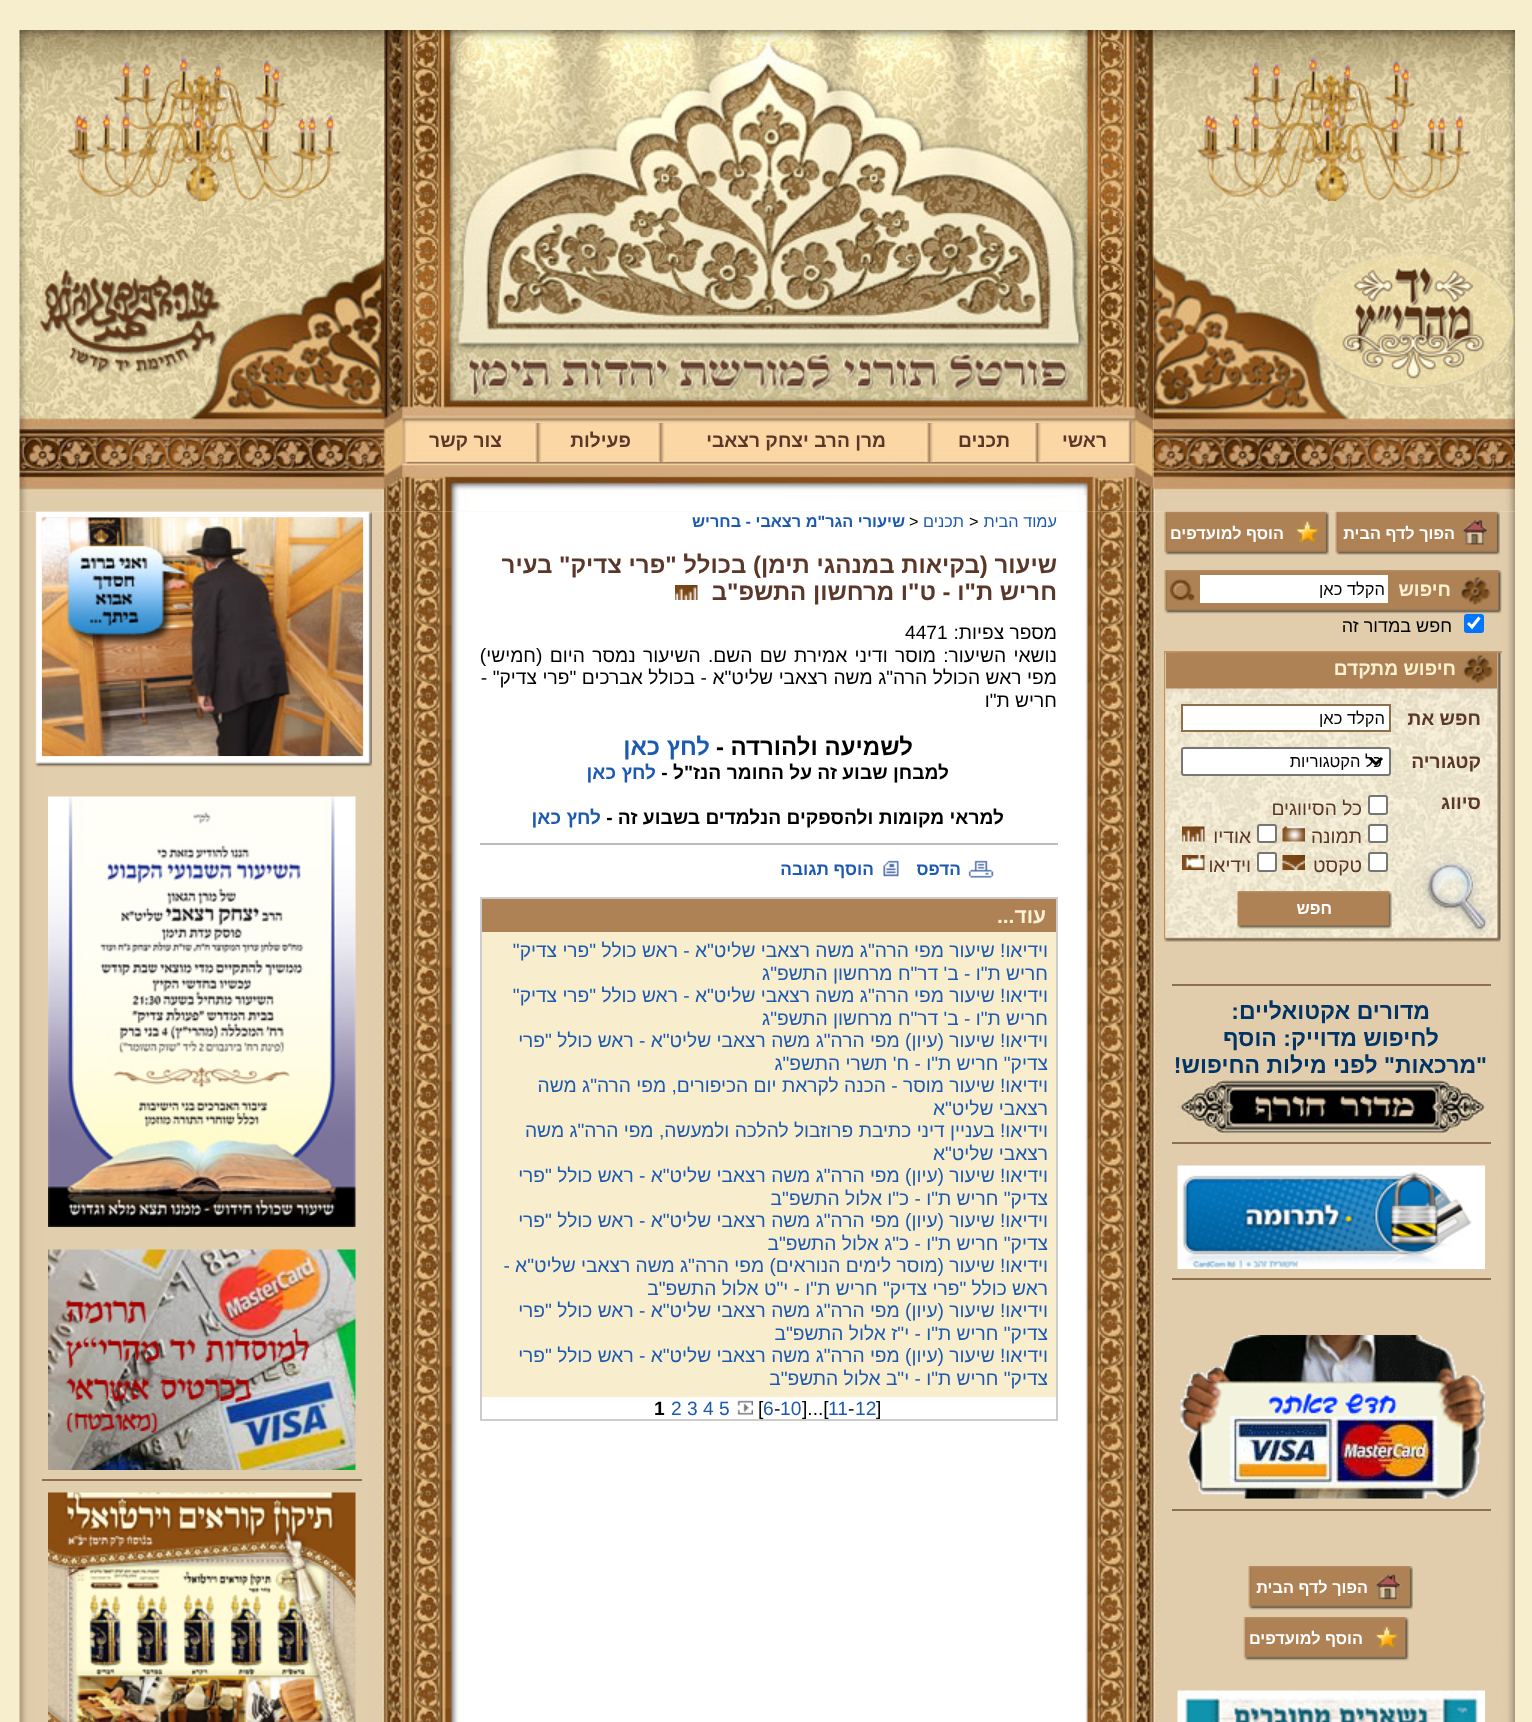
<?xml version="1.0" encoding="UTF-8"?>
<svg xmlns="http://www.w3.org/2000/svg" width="1532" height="1722">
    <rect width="100%" height="100%" fill="#F7EECD"/>
    <image x="19" y="511" width="1496" height="1211" href="img_08.png"/>
    <image x="1335" y="511" width="165" height="44" href="img_09.png"/>
    <image x="1164" y="511" width="165" height="44" href="img_10.png"/>
    <image x="1153" y="30" width="362" height="482" href="img_01.png"/>
    <image x="1196" y="55" width="275" height="147" href="img_02.png"/>
    <image x="381" y="30" width="773" height="482" href="img_03.png"/>
    <image x="1033" y="423" width="10" height="39" href="img_04.png"/>
    <text x="1107" y="447" font-family="Liberation Sans" font-size="19.2" font-weight="700" direction="rtl" fill="#5B3729">ראשי</text>
    <image x="925" y="423" width="10" height="39" href="img_04.png"/>
    <text x="1010" y="447" font-family="Liberation Sans" font-size="19.2" font-weight="700" direction="rtl" fill="#5B3729">תכנים</text>
    <image x="657" y="423" width="9" height="39" href="img_05.png"/>
    <text x="886" y="447" font-family="Liberation Sans" font-size="19.2" font-weight="700" direction="rtl" fill="#5B3729">מרן הרב יצחק רצאבי</text>
    <image x="534" y="423" width="9" height="39" href="img_05.png"/>
    <text x="631" y="447" font-family="Liberation Sans" font-size="19.2" font-weight="700" direction="rtl" fill="#5B3729">פעילות</text>
    <text x="502" y="447" font-family="Liberation Sans" font-size="19.2" font-weight="700" direction="rtl" fill="#5B3729">צור קשר</text>
    <image x="34" y="511" width="338" height="256" href="img_31.png"/>
    <image x="19" y="30" width="362" height="482" href="img_06.png"/>
    <image x="67" y="55" width="274" height="147" href="img_07.png"/>
    <text x="1455" y="539" font-family="Liberation Sans" font-size="16.25" font-weight="700" direction="rtl" fill="#FFFFFF">הפוך לדף הבית</text>
    <text x="1284" y="539" font-family="Liberation Sans" font-size="16.25" font-weight="700" direction="rtl" fill="#FFFFFF">הוסף למועדפים</text>
    <image x="1164" y="570" width="338" height="44" href="img_11.png"/>
    <text x="1451" y="596" font-family="Liberation Sans" font-size="19.2" font-weight="700" direction="rtl" fill="#FDF3D2">חיפוש</text>
    <rect x="1200" y="575" width="188" height="28" fill="#FFFFFF"/>
    <text x="1385" y="595" font-family="Liberation Sans" font-size="16.5" direction="rtl" fill="#000000">הקלד כאן</text>
    <image x="1170" y="579" width="25" height="22" href="img_12.png"/>
    <rect x="1464" y="614" width="20" height="19" rx="3" fill="#0075FF"/>
    <path d="M 1468 623 L 1472 627 L 1479.5 617.5" fill="none" stroke="#FFFFFF" stroke-width="3.1"/>
    <text x="1452" y="632" font-family="Liberation Sans" font-size="18" direction="rtl" fill="#000000">חפש במדור זה</text>
    <rect x="1165" y="653" width="337" height="289" fill="#FFFFFF"/>
    <image x="1164" y="653" width="338" height="289" href="img_13.png"/>
    <rect x="1164" y="651" width="338" height="2" fill="#C09363"/>
    <rect x="1166" y="653" width="331" height="36" fill="#AE8255"/>
    <image x="1177" y="652" width="320" height="31" href="img_14.png"/>
    <text x="1456" y="675" font-family="Liberation Sans" font-size="19.2" font-weight="700" direction="rtl" fill="#FDF3D2">חיפוש מתקדם</text>
    <image x="1165" y="688" width="332" height="250" href="img_15.png"/>
    <text x="1481" y="725" font-family="Liberation Sans" font-size="19.2" font-weight="700" direction="rtl" fill="#5B3729">חפש את</text>
    <rect x="1182" y="705" width="208" height="26" fill="#FFFFFF" stroke="#8F704C" stroke-width="2"/>
    <text x="1385" y="724" font-family="Liberation Sans" font-size="16.5" direction="rtl" fill="#000000">הקלד כאן</text>
    <text x="1481" y="768" font-family="Liberation Sans" font-size="19.2" font-weight="700" direction="rtl" fill="#5B3729">קטגוריה</text>
    <rect x="1182" y="748" width="208" height="27" rx="2" fill="#FFFFFF" stroke="#767676" stroke-width="2"/>
    <path d="M 1370 758 L 1376 764 L 1382 758" fill="none" stroke="#000000" stroke-width="3"/>
    <text x="1382" y="767" font-family="Liberation Sans" font-size="16.5" direction="rtl" fill="#000000">כל הקטגוריות</text>
    <text x="1481" y="809" font-family="Liberation Sans" font-size="19.2" font-weight="700" direction="rtl" fill="#5B3729">סיווג</text>
    <rect x="1369" y="796" width="18" height="18" rx="2" fill="#FFFFFF" stroke="#767676" stroke-width="2"/>
    <text x="1362" y="815" font-family="Liberation Sans" font-size="19.2" direction="rtl" fill="#5B3729">כל הסיווגים</text>
    <rect x="1369" y="825" width="18" height="17" rx="2" fill="#FFFFFF" stroke="#767676" stroke-width="2"/>
    <text x="1362" y="843" font-family="Liberation Sans" font-size="19.2" direction="rtl" fill="#5B3729">תמונה</text>
    <image x="1282" y="826" width="23" height="16" href="img_16.png"/>
    <rect x="1258" y="825" width="18" height="17" rx="2" fill="#FFFFFF" stroke="#767676" stroke-width="2"/>
    <text x="1251" y="843" font-family="Liberation Sans" font-size="19.2" direction="rtl" fill="#5B3729">אודיו</text>
    <image x="1182" y="826" width="23" height="16" href="img_17.png"/>
    <rect x="1369" y="853" width="18" height="18" rx="2" fill="#FFFFFF" stroke="#767676" stroke-width="2"/>
    <text x="1362" y="872" font-family="Liberation Sans" font-size="19.2" direction="rtl" fill="#5B3729">טקסט</text>
    <image x="1282" y="855" width="23" height="15" href="img_18.png"/>
    <rect x="1258" y="853" width="18" height="18" rx="2" fill="#FFFFFF" stroke="#767676" stroke-width="2"/>
    <text x="1251" y="872" font-family="Liberation Sans" font-size="19.2" direction="rtl" fill="#5B3729">וידיאו</text>
    <image x="1182" y="855" width="23" height="15" href="img_19.png"/>
    <image x="1237" y="891" width="155" height="39" href="img_20.png"/>
    <text x="1332" y="914" font-family="Liberation Sans" font-size="16.5" font-weight="700" direction="rtl" fill="#FFFFFF">חפש</text>
    <rect x="1172" y="984" width="319" height="2" fill="#8F704C"/>
    <text x="1430" y="1019" font-family="Liberation Sans" font-size="23" font-weight="700" direction="rtl" fill="#003366">מדורים אקטואליים:</text>
    <text x="1439" y="1046" font-family="Liberation Sans" font-size="23" font-weight="700" direction="rtl" fill="#003366">לחיפוש מדוייק: הוסף</text>
    <text x="1487" y="1073" font-family="Liberation Sans" font-size="23" font-weight="700" direction="rtl" fill="#003366">"מרכאות" לפני מילות החיפוש!</text>
    <image x="1177" y="1078" width="308" height="58" href="img_21.png"/>
    <rect x="1172" y="1142" width="319" height="2" fill="#8F704C"/>
    <image x="1177" y="1165" width="308" height="104" href="img_22.png"/>
    <rect x="1172" y="1278" width="319" height="2" fill="#8F704C"/>
    <image x="1180" y="1335" width="305" height="164" href="img_23.png"/>
    <rect x="1172" y="1509" width="319" height="2" fill="#8F704C"/>
    <image x="1248" y="1566" width="165" height="44" href="img_24.png"/>
    <text x="1368" y="1593" font-family="Liberation Sans" font-size="16.25" font-weight="700" direction="rtl" fill="#FFFFFF">הפוך לדף הבית</text>
    <image x="1243" y="1617" width="166" height="44" href="img_25.png"/>
    <text x="1363" y="1644" font-family="Liberation Sans" font-size="16.25" font-weight="700" direction="rtl" fill="#FFFFFF">הוסף למועדפים</text>
    <image x="1177" y="1690" width="308" height="32" href="img_26.png"/>
    <text x="1057" y="527" font-family="Liberation Sans" font-size="16.25" direction="rtl" fill="#1C5AB1">עמוד הבית</text>
    <text x="969" y="527" font-family="Liberation Sans" font-size="16.25" fill="#000000">&gt;</text>
    <text x="964" y="527" font-family="Liberation Sans" font-size="16.25" direction="rtl" fill="#1C5AB1">תכנים</text>
    <text x="909" y="527" font-family="Liberation Sans" font-size="16.25" fill="#000000">&gt;</text>
    <text x="905" y="527" font-family="Liberation Sans" font-size="16.25" font-weight="700" direction="rtl" fill="#1C5AB1">שיעורי הגר"מ רצאבי - בחריש</text>
    <text font-family="Liberation Sans" font-size="24" font-weight="700" direction="rtl" fill="#5B3729">
        <tspan x="1057" y="573">שיעור (בקיאות במנהגי תימן) בכולל "פרי צדיק" בעיר</tspan>
        <tspan x="1057" y="600">חריש ת"ו - ט"ו מרחשון התשפ"ב</tspan>
    </text>
    <image x="675" y="585" width="23" height="15" href="img_27.png"/>
    <text x="1057" y="639" font-family="Liberation Sans" font-size="19.2" direction="rtl" fill="#000000">מספר צפיות:</text>
    <text x="905" y="639" font-family="Liberation Sans" font-size="19.2" fill="#000000">4471</text>
    <text font-family="Liberation Sans" font-size="19.2" direction="rtl" fill="#000000">
        <tspan x="1057" y="662" word-spacing="2">נושאי השיעור: מוסר ודיני אמירת שם השם. השיעור נמסר היום (חמישי)</tspan>
        <tspan x="1057" y="684" word-spacing="0.25">מפי ראש הכולל הרה"ג משה רצאבי שליט"א - בכולל אברכים "פרי צדיק" -</tspan>
        <tspan x="1057" y="707">חריש ת"ו</tspan>
    </text>
    <text x="913" y="755" font-family="Liberation Sans" font-size="24" font-weight="700" direction="rtl" fill="#000000">לשמיעה ולהורדה -</text>
    <text x="710" y="755" font-family="Liberation Sans" font-size="24" font-weight="700" direction="rtl" fill="#1C5AB1">לחץ כאן</text>
    <text x="949" y="779" font-family="Liberation Sans" font-size="19.2" font-weight="700" direction="rtl" fill="#000000">למבחן שבוע זה על החומר הנז"ל -</text>
    <text x="656" y="779" font-family="Liberation Sans" font-size="19.2" font-weight="700" direction="rtl" fill="#1C5AB1">לחץ כאן</text>
    <text x="1004" y="824" font-family="Liberation Sans" font-size="19.2" font-weight="700" direction="rtl" fill="#000000">למראי מקומות ולהספקים הנלמדים בשבוע זה -</text>
    <text x="601" y="824" font-family="Liberation Sans" font-size="19.2" font-weight="700" direction="rtl" fill="#1C5AB1">לחץ כאן</text>
    <rect x="480" y="843" width="578" height="2" fill="#BCBCBC"/>
    <image x="968" y="860" width="26" height="18" href="img_28.png"/>
    <text x="961" y="875" font-family="Liberation Sans" font-size="17.25" font-weight="700" direction="rtl" fill="#1C5AB1">הדפס</text>
    <image x="883" y="860" width="16" height="17" href="img_29.png"/>
    <text x="874" y="875" font-family="Liberation Sans" font-size="17.25" font-weight="700" direction="rtl" fill="#1C5AB1">הוסף תגובה</text>
    <rect x="481" y="898" width="576" height="522" fill="none" stroke="#CCCCCC" stroke-width="2"/>
    <rect x="482" y="899" width="574" height="33" fill="#AE8255"/>
    <text x="1046" y="923" font-family="Liberation Sans" font-size="21" font-weight="700" direction="rtl" fill="#FDF3D2">עוד...</text>
    <rect x="482" y="932" width="574" height="465" fill="#F8EDCD"/>
    <text font-family="Liberation Sans" font-size="19.2" direction="rtl" fill="#1C5AB1">
        <tspan x="1048" y="957">וידיאו! שיעור מפי הרה"ג משה רצאבי שליט"א - ראש כולל "פרי צדיק"</tspan>
        <tspan x="1048" y="980">חריש ת"ו - ב' דר"ח מרחשון התשפ"ג</tspan>
        <tspan x="1048" y="1002">וידיאו! שיעור מפי הרה"ג משה רצאבי שליט"א - ראש כולל "פרי צדיק"</tspan>
        <tspan x="1048" y="1025">חריש ת"ו - ב' דר"ח מרחשון התשפ"ג</tspan>
        <tspan x="1048" y="1047">וידיאו! שיעור (עיון) מפי הרה"ג משה רצאבי שליט"א - ראש כולל "פרי</tspan>
        <tspan x="1048" y="1070">צדיק" חריש ת"ו - ח' תשרי התשפ"ג</tspan>
        <tspan x="1048" y="1092">וידיאו! שיעור מוסר - הכנה לקראת יום הכיפורים, מפי הרה"ג משה</tspan>
        <tspan x="1048" y="1115">רצאבי שליט"א</tspan>
        <tspan x="1048" y="1137">וידיאו! בעניין דיני כתיבת פרוזבול להלכה ולמעשה, מפי הרה"ג משה</tspan>
        <tspan x="1048" y="1160">רצאבי שליט"א</tspan>
        <tspan x="1048" y="1182">וידיאו! שיעור (עיון) מפי הרה"ג משה רצאבי שליט"א - ראש כולל "פרי</tspan>
        <tspan x="1048" y="1205">צדיק" חריש ת"ו - כ"ו אלול התשפ"ב</tspan>
        <tspan x="1048" y="1227">וידיאו! שיעור (עיון) מפי הרה"ג משה רצאבי שליט"א - ראש כולל "פרי</tspan>
        <tspan x="1048" y="1250">צדיק" חריש ת"ו - כ"ג אלול התשפ"ב</tspan>
        <tspan x="1048" y="1272">וידיאו! שיעור (מוסר לימים הנוראים) מפי הרה"ג משה רצאבי שליט"א -</tspan>
        <tspan x="1048" y="1295">ראש כולל "פרי צדיק" חריש ת"ו - י"ט אלול התשפ"ב</tspan>
        <tspan x="1048" y="1317">וידיאו! שיעור (עיון) מפי הרה"ג משה רצאבי שליט"א - ראש כולל "פרי</tspan>
        <tspan x="1048" y="1340">צדיק" חריש ת"ו - י"ז אלול התשפ"ב</tspan>
        <tspan x="1048" y="1362">וידיאו! שיעור (עיון) מפי הרה"ג משה רצאבי שליט"א - ראש כולל "פרי</tspan>
        <tspan x="1048" y="1385">צדיק" חריש ת"ו - י"ב אלול התשפ"ב</tspan>
    </text>
    <text x="876" y="1415" font-family="Liberation Sans" font-size="19.2" fill="#000000">]</text>
    <text x="855" y="1415" font-family="Liberation Sans" font-size="19.2" fill="#1C5AB1">12</text>
    <text x="848" y="1415" font-family="Liberation Sans" font-size="19.2" fill="#000000">-</text>
    <text x="828" y="1415" font-family="Liberation Sans" font-size="19.2" fill="#1C5AB1">11</text>
    <text x="780" y="1415" font-family="Liberation Sans" font-size="19.2" fill="#1C5AB1">10</text>
    <text x="802" y="1415" font-family="Liberation Sans" font-size="19.2" fill="#000000">]...[</text>
    <text x="774" y="1415" font-family="Liberation Sans" font-size="19.2" fill="#000000">-</text>
    <text x="763" y="1415" font-family="Liberation Sans" font-size="19.2" fill="#1C5AB1">6</text>
    <text x="758" y="1415" font-family="Liberation Sans" font-size="19.2" fill="#000000">[</text>
    <image x="737" y="1400" width="16" height="15" href="img_30.png"/>
    <text x="671" y="1415" font-family="Liberation Sans" font-size="19.2" fill="#1C5AB1">2 3 4 5</text>
    <text x="654" y="1415" font-family="Liberation Sans" font-size="19.2" font-weight="700" fill="#000000">1</text>
    <image x="42" y="517" width="321" height="239" href="img_32.png"/>
    <image x="48" y="796" width="308" height="431" href="img_33.png"/>
    <image x="48" y="1249" width="308" height="221" href="img_34.png"/>
    <rect x="42" y="1479" width="320" height="2" fill="#8F704C"/>
    <image x="48" y="1492" width="308" height="230" href="img_35.png"/>
</svg>
